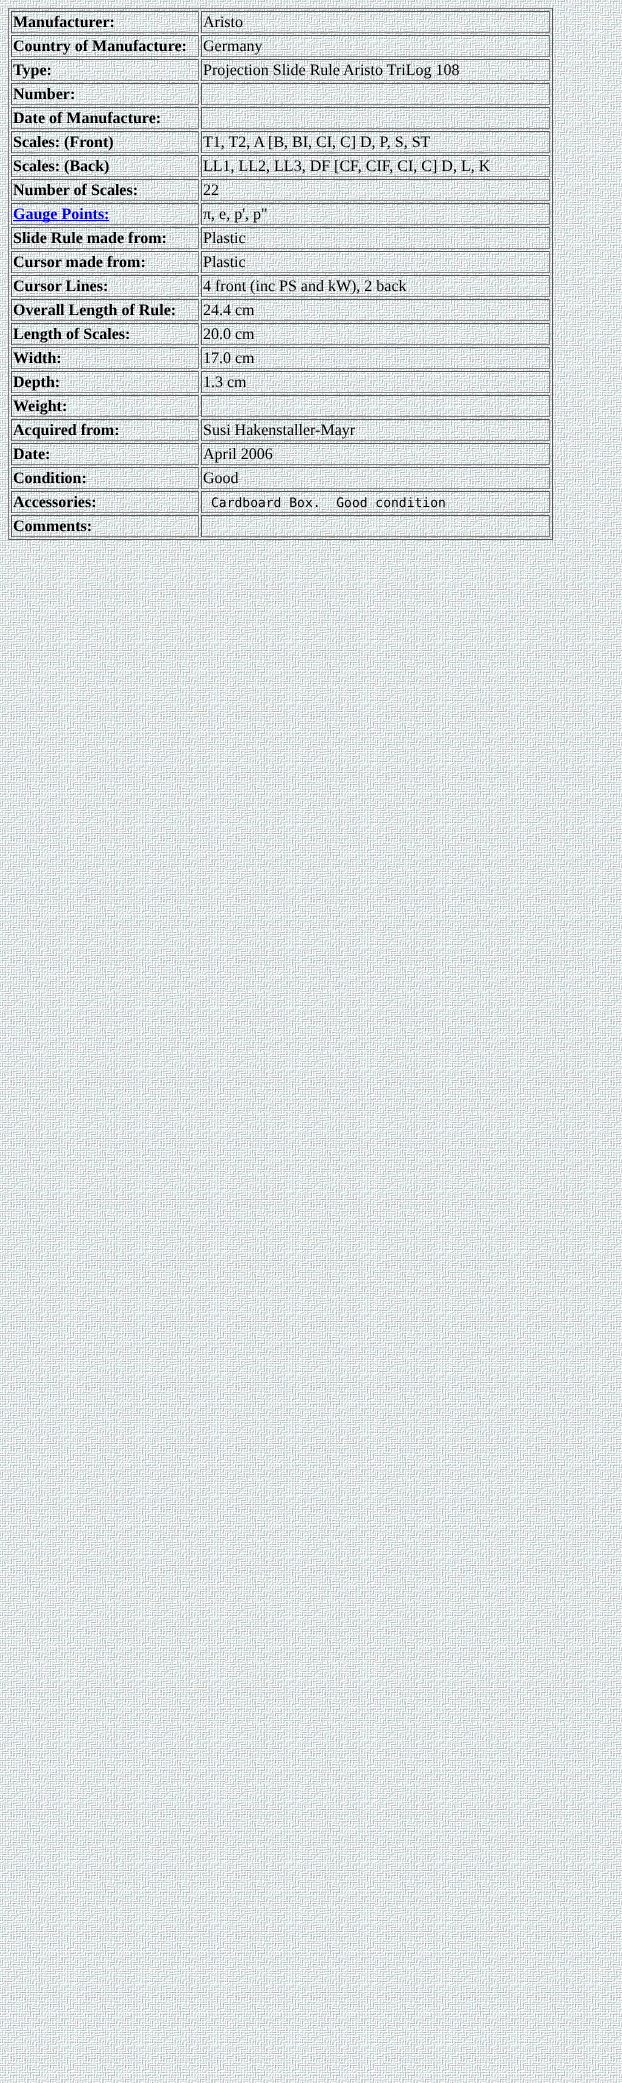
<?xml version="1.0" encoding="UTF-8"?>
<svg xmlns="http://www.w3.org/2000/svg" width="622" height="2083">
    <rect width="100%" height="100%" fill="#FFFFFF"/>
    <image x="0" y="0" width="622" height="2083" href="img_01.png"/>
    <image x="9" y="9" width="543" height="530" href="img_02.png"/>
    <rect x="8" y="8" width="545" height="1" fill="#808080"/>
    <rect x="552" y="8" width="1" height="532" fill="#555555"/>
    <rect x="8" y="539" width="545" height="1" fill="#555555"/>
    <rect x="8" y="8" width="1" height="532" fill="#808080"/>
    <rect x="11" y="11" width="188" height="1" fill="#555555"/>
    <rect x="198" y="11" width="1" height="22" fill="#808080"/>
    <rect x="11" y="32" width="188" height="1" fill="#808080"/>
    <rect x="11" y="11" width="1" height="22" fill="#555555"/>
    <text x="13" y="27" font-family="Liberation Serif" font-size="16" font-weight="700" fill="#000000">Manufacturer:</text>
    <rect x="201" y="11" width="349" height="1" fill="#555555"/>
    <rect x="549" y="11" width="1" height="22" fill="#808080"/>
    <rect x="201" y="32" width="349" height="1" fill="#808080"/>
    <rect x="201" y="11" width="1" height="22" fill="#555555"/>
    <text x="203" y="27" font-family="Liberation Serif" font-size="16" fill="#000000">Aristo</text>
    <rect x="11" y="35" width="188" height="1" fill="#555555"/>
    <rect x="198" y="35" width="1" height="22" fill="#808080"/>
    <rect x="11" y="56" width="188" height="1" fill="#808080"/>
    <rect x="11" y="35" width="1" height="22" fill="#555555"/>
    <text x="13" y="51" font-family="Liberation Serif" font-size="16" font-weight="700" fill="#000000">Country of Manufacture:</text>
    <rect x="201" y="35" width="349" height="1" fill="#555555"/>
    <rect x="549" y="35" width="1" height="22" fill="#808080"/>
    <rect x="201" y="56" width="349" height="1" fill="#808080"/>
    <rect x="201" y="35" width="1" height="22" fill="#555555"/>
    <text x="203" y="51" font-family="Liberation Serif" font-size="16" fill="#000000">Germany</text>
    <rect x="11" y="59" width="188" height="1" fill="#555555"/>
    <rect x="198" y="59" width="1" height="22" fill="#808080"/>
    <rect x="11" y="80" width="188" height="1" fill="#808080"/>
    <rect x="11" y="59" width="1" height="22" fill="#555555"/>
    <text x="13" y="75" font-family="Liberation Serif" font-size="16" font-weight="700" fill="#000000">Type:</text>
    <rect x="201" y="59" width="349" height="1" fill="#555555"/>
    <rect x="549" y="59" width="1" height="22" fill="#808080"/>
    <rect x="201" y="80" width="349" height="1" fill="#808080"/>
    <rect x="201" y="59" width="1" height="22" fill="#555555"/>
    <text x="203" y="75" font-family="Liberation Serif" font-size="16" fill="#000000">Projection Slide Rule Aristo TriLog 108</text>
    <rect x="11" y="83" width="188" height="1" fill="#555555"/>
    <rect x="198" y="83" width="1" height="22" fill="#808080"/>
    <rect x="11" y="104" width="188" height="1" fill="#808080"/>
    <rect x="11" y="83" width="1" height="22" fill="#555555"/>
    <text x="13" y="99" font-family="Liberation Serif" font-size="16" font-weight="700" fill="#000000">Number:</text>
    <rect x="201" y="83" width="349" height="1" fill="#555555"/>
    <rect x="549" y="83" width="1" height="22" fill="#808080"/>
    <rect x="201" y="104" width="349" height="1" fill="#808080"/>
    <rect x="201" y="83" width="1" height="22" fill="#555555"/>
    <rect x="11" y="107" width="188" height="1" fill="#555555"/>
    <rect x="198" y="107" width="1" height="22" fill="#808080"/>
    <rect x="11" y="128" width="188" height="1" fill="#808080"/>
    <rect x="11" y="107" width="1" height="22" fill="#555555"/>
    <text x="13" y="123" font-family="Liberation Serif" font-size="16" font-weight="700" fill="#000000">Date of Manufacture:</text>
    <rect x="201" y="107" width="349" height="1" fill="#555555"/>
    <rect x="549" y="107" width="1" height="22" fill="#808080"/>
    <rect x="201" y="128" width="349" height="1" fill="#808080"/>
    <rect x="201" y="107" width="1" height="22" fill="#555555"/>
    <rect x="11" y="131" width="188" height="1" fill="#555555"/>
    <rect x="198" y="131" width="1" height="22" fill="#808080"/>
    <rect x="11" y="152" width="188" height="1" fill="#808080"/>
    <rect x="11" y="131" width="1" height="22" fill="#555555"/>
    <text x="13" y="147" font-family="Liberation Serif" font-size="16" font-weight="700" fill="#000000">Scales: (Front)</text>
    <rect x="201" y="131" width="349" height="1" fill="#555555"/>
    <rect x="549" y="131" width="1" height="22" fill="#808080"/>
    <rect x="201" y="152" width="349" height="1" fill="#808080"/>
    <rect x="201" y="131" width="1" height="22" fill="#555555"/>
    <text x="203" y="147" font-family="Liberation Serif" font-size="16" fill="#000000">T1, T2, A [B, BI, CI, C] D, P, S, ST</text>
    <rect x="11" y="155" width="188" height="1" fill="#555555"/>
    <rect x="198" y="155" width="1" height="22" fill="#808080"/>
    <rect x="11" y="176" width="188" height="1" fill="#808080"/>
    <rect x="11" y="155" width="1" height="22" fill="#555555"/>
    <text x="13" y="171" font-family="Liberation Serif" font-size="16" font-weight="700" fill="#000000">Scales: (Back)</text>
    <rect x="201" y="155" width="349" height="1" fill="#555555"/>
    <rect x="549" y="155" width="1" height="22" fill="#808080"/>
    <rect x="201" y="176" width="349" height="1" fill="#808080"/>
    <rect x="201" y="155" width="1" height="22" fill="#555555"/>
    <text x="203" y="171" font-family="Liberation Serif" font-size="16" fill="#000000">LL1, LL2, LL3, DF [CF, CIF, CI, C] D, L, K</text>
    <rect x="11" y="179" width="188" height="1" fill="#555555"/>
    <rect x="198" y="179" width="1" height="22" fill="#808080"/>
    <rect x="11" y="200" width="188" height="1" fill="#808080"/>
    <rect x="11" y="179" width="1" height="22" fill="#555555"/>
    <text x="13" y="195" font-family="Liberation Serif" font-size="16" font-weight="700" fill="#000000">Number of Scales:</text>
    <rect x="201" y="179" width="349" height="1" fill="#555555"/>
    <rect x="549" y="179" width="1" height="22" fill="#808080"/>
    <rect x="201" y="200" width="349" height="1" fill="#808080"/>
    <rect x="201" y="179" width="1" height="22" fill="#555555"/>
    <text x="203" y="195" font-family="Liberation Serif" font-size="16" fill="#000000">22</text>
    <rect x="11" y="203" width="188" height="1" fill="#555555"/>
    <rect x="198" y="203" width="1" height="22" fill="#808080"/>
    <rect x="11" y="224" width="188" height="1" fill="#808080"/>
    <rect x="11" y="203" width="1" height="22" fill="#555555"/>
    <rect x="13" y="220" width="96" height="1" fill="#0000EE"/>
    <text x="13" y="219" font-family="Liberation Serif" font-size="16" font-weight="700" fill="#0000EE">Gauge Points:</text>
    <rect x="201" y="203" width="349" height="1" fill="#555555"/>
    <rect x="549" y="203" width="1" height="22" fill="#808080"/>
    <rect x="201" y="224" width="349" height="1" fill="#808080"/>
    <rect x="201" y="203" width="1" height="22" fill="#555555"/>
    <text x="203" y="219" font-family="Liberation Serif" font-size="16" fill="#000000">π, e, p', p"</text>
    <rect x="11" y="227" width="188" height="1" fill="#555555"/>
    <rect x="198" y="227" width="1" height="22" fill="#808080"/>
    <rect x="11" y="248" width="188" height="1" fill="#808080"/>
    <rect x="11" y="227" width="1" height="22" fill="#555555"/>
    <text x="13" y="243" font-family="Liberation Serif" font-size="16" font-weight="700" fill="#000000">Slide Rule made from:</text>
    <rect x="201" y="227" width="349" height="1" fill="#555555"/>
    <rect x="549" y="227" width="1" height="22" fill="#808080"/>
    <rect x="201" y="248" width="349" height="1" fill="#808080"/>
    <rect x="201" y="227" width="1" height="22" fill="#555555"/>
    <text x="203" y="243" font-family="Liberation Serif" font-size="16" fill="#000000">Plastic</text>
    <rect x="11" y="251" width="188" height="1" fill="#555555"/>
    <rect x="198" y="251" width="1" height="22" fill="#808080"/>
    <rect x="11" y="272" width="188" height="1" fill="#808080"/>
    <rect x="11" y="251" width="1" height="22" fill="#555555"/>
    <text x="13" y="267" font-family="Liberation Serif" font-size="16" font-weight="700" fill="#000000">Cursor made from:</text>
    <rect x="201" y="251" width="349" height="1" fill="#555555"/>
    <rect x="549" y="251" width="1" height="22" fill="#808080"/>
    <rect x="201" y="272" width="349" height="1" fill="#808080"/>
    <rect x="201" y="251" width="1" height="22" fill="#555555"/>
    <text x="203" y="267" font-family="Liberation Serif" font-size="16" fill="#000000">Plastic</text>
    <rect x="11" y="275" width="188" height="1" fill="#555555"/>
    <rect x="198" y="275" width="1" height="22" fill="#808080"/>
    <rect x="11" y="296" width="188" height="1" fill="#808080"/>
    <rect x="11" y="275" width="1" height="22" fill="#555555"/>
    <text x="13" y="291" font-family="Liberation Serif" font-size="16" font-weight="700" fill="#000000">Cursor Lines:</text>
    <rect x="201" y="275" width="349" height="1" fill="#555555"/>
    <rect x="549" y="275" width="1" height="22" fill="#808080"/>
    <rect x="201" y="296" width="349" height="1" fill="#808080"/>
    <rect x="201" y="275" width="1" height="22" fill="#555555"/>
    <text x="203" y="291" font-family="Liberation Serif" font-size="16" fill="#000000">4 front (inc PS and kW), 2 back</text>
    <rect x="11" y="299" width="188" height="1" fill="#555555"/>
    <rect x="198" y="299" width="1" height="22" fill="#808080"/>
    <rect x="11" y="320" width="188" height="1" fill="#808080"/>
    <rect x="11" y="299" width="1" height="22" fill="#555555"/>
    <text x="13" y="315" font-family="Liberation Serif" font-size="16" font-weight="700" fill="#000000">Overall Length of Rule:</text>
    <rect x="201" y="299" width="349" height="1" fill="#555555"/>
    <rect x="549" y="299" width="1" height="22" fill="#808080"/>
    <rect x="201" y="320" width="349" height="1" fill="#808080"/>
    <rect x="201" y="299" width="1" height="22" fill="#555555"/>
    <text x="203" y="315" font-family="Liberation Serif" font-size="16" fill="#000000">24.4 cm</text>
    <rect x="11" y="323" width="188" height="1" fill="#555555"/>
    <rect x="198" y="323" width="1" height="22" fill="#808080"/>
    <rect x="11" y="344" width="188" height="1" fill="#808080"/>
    <rect x="11" y="323" width="1" height="22" fill="#555555"/>
    <text x="13" y="339" font-family="Liberation Serif" font-size="16" font-weight="700" fill="#000000">Length of Scales:</text>
    <rect x="201" y="323" width="349" height="1" fill="#555555"/>
    <rect x="549" y="323" width="1" height="22" fill="#808080"/>
    <rect x="201" y="344" width="349" height="1" fill="#808080"/>
    <rect x="201" y="323" width="1" height="22" fill="#555555"/>
    <text x="203" y="339" font-family="Liberation Serif" font-size="16" fill="#000000">20.0 cm</text>
    <rect x="11" y="347" width="188" height="1" fill="#555555"/>
    <rect x="198" y="347" width="1" height="22" fill="#808080"/>
    <rect x="11" y="368" width="188" height="1" fill="#808080"/>
    <rect x="11" y="347" width="1" height="22" fill="#555555"/>
    <text x="13" y="363" font-family="Liberation Serif" font-size="16" font-weight="700" fill="#000000">Width:</text>
    <rect x="201" y="347" width="349" height="1" fill="#555555"/>
    <rect x="549" y="347" width="1" height="22" fill="#808080"/>
    <rect x="201" y="368" width="349" height="1" fill="#808080"/>
    <rect x="201" y="347" width="1" height="22" fill="#555555"/>
    <text x="203" y="363" font-family="Liberation Serif" font-size="16" fill="#000000">17.0 cm</text>
    <rect x="11" y="371" width="188" height="1" fill="#555555"/>
    <rect x="198" y="371" width="1" height="22" fill="#808080"/>
    <rect x="11" y="392" width="188" height="1" fill="#808080"/>
    <rect x="11" y="371" width="1" height="22" fill="#555555"/>
    <text x="13" y="387" font-family="Liberation Serif" font-size="16" font-weight="700" fill="#000000">Depth:</text>
    <rect x="201" y="371" width="349" height="1" fill="#555555"/>
    <rect x="549" y="371" width="1" height="22" fill="#808080"/>
    <rect x="201" y="392" width="349" height="1" fill="#808080"/>
    <rect x="201" y="371" width="1" height="22" fill="#555555"/>
    <text x="203" y="387" font-family="Liberation Serif" font-size="16" fill="#000000">1.3 cm</text>
    <rect x="11" y="395" width="188" height="1" fill="#555555"/>
    <rect x="198" y="395" width="1" height="22" fill="#808080"/>
    <rect x="11" y="416" width="188" height="1" fill="#808080"/>
    <rect x="11" y="395" width="1" height="22" fill="#555555"/>
    <text x="13" y="411" font-family="Liberation Serif" font-size="16" font-weight="700" fill="#000000">Weight:</text>
    <rect x="201" y="395" width="349" height="1" fill="#555555"/>
    <rect x="549" y="395" width="1" height="22" fill="#808080"/>
    <rect x="201" y="416" width="349" height="1" fill="#808080"/>
    <rect x="201" y="395" width="1" height="22" fill="#555555"/>
    <rect x="11" y="419" width="188" height="1" fill="#555555"/>
    <rect x="198" y="419" width="1" height="22" fill="#808080"/>
    <rect x="11" y="440" width="188" height="1" fill="#808080"/>
    <rect x="11" y="419" width="1" height="22" fill="#555555"/>
    <text x="13" y="435" font-family="Liberation Serif" font-size="16" font-weight="700" fill="#000000">Acquired from:</text>
    <rect x="201" y="419" width="349" height="1" fill="#555555"/>
    <rect x="549" y="419" width="1" height="22" fill="#808080"/>
    <rect x="201" y="440" width="349" height="1" fill="#808080"/>
    <rect x="201" y="419" width="1" height="22" fill="#555555"/>
    <text x="203" y="435" font-family="Liberation Serif" font-size="16" fill="#000000">Susi Hakenstaller-Mayr</text>
    <rect x="11" y="443" width="188" height="1" fill="#555555"/>
    <rect x="198" y="443" width="1" height="22" fill="#808080"/>
    <rect x="11" y="464" width="188" height="1" fill="#808080"/>
    <rect x="11" y="443" width="1" height="22" fill="#555555"/>
    <text x="13" y="459" font-family="Liberation Serif" font-size="16" font-weight="700" fill="#000000">Date:</text>
    <rect x="201" y="443" width="349" height="1" fill="#555555"/>
    <rect x="549" y="443" width="1" height="22" fill="#808080"/>
    <rect x="201" y="464" width="349" height="1" fill="#808080"/>
    <rect x="201" y="443" width="1" height="22" fill="#555555"/>
    <text x="203" y="459" font-family="Liberation Serif" font-size="16" fill="#000000">April 2006</text>
    <rect x="11" y="467" width="188" height="1" fill="#555555"/>
    <rect x="198" y="467" width="1" height="22" fill="#808080"/>
    <rect x="11" y="488" width="188" height="1" fill="#808080"/>
    <rect x="11" y="467" width="1" height="22" fill="#555555"/>
    <text x="13" y="483" font-family="Liberation Serif" font-size="16" font-weight="700" fill="#000000">Condition:</text>
    <rect x="201" y="467" width="349" height="1" fill="#555555"/>
    <rect x="549" y="467" width="1" height="22" fill="#808080"/>
    <rect x="201" y="488" width="349" height="1" fill="#808080"/>
    <rect x="201" y="467" width="1" height="22" fill="#555555"/>
    <text x="203" y="483" font-family="Liberation Serif" font-size="16" fill="#000000">Good</text>
    <rect x="11" y="491" width="188" height="1" fill="#555555"/>
    <rect x="198" y="491" width="1" height="22" fill="#808080"/>
    <rect x="11" y="512" width="188" height="1" fill="#808080"/>
    <rect x="11" y="491" width="1" height="22" fill="#555555"/>
    <text x="13" y="507" font-family="Liberation Serif" font-size="16" font-weight="700" fill="#000000">Accessories:</text>
    <rect x="201" y="491" width="349" height="1" fill="#555555"/>
    <rect x="549" y="491" width="1" height="22" fill="#808080"/>
    <rect x="201" y="512" width="349" height="1" fill="#808080"/>
    <rect x="201" y="491" width="1" height="22" fill="#555555"/>
    <text x="211" y="507" font-family="DejaVu Sans Mono" font-size="13" fill="#000000" xml:space="preserve">Cardboard Box.  Good condition</text>
    <rect x="11" y="515" width="188" height="1" fill="#555555"/>
    <rect x="198" y="515" width="1" height="22" fill="#808080"/>
    <rect x="11" y="536" width="188" height="1" fill="#808080"/>
    <rect x="11" y="515" width="1" height="22" fill="#555555"/>
    <text x="13" y="531" font-family="Liberation Serif" font-size="16" font-weight="700" fill="#000000">Comments:</text>
    <rect x="201" y="515" width="349" height="1" fill="#555555"/>
    <rect x="549" y="515" width="1" height="22" fill="#808080"/>
    <rect x="201" y="536" width="349" height="1" fill="#808080"/>
    <rect x="201" y="515" width="1" height="22" fill="#555555"/>
</svg>
